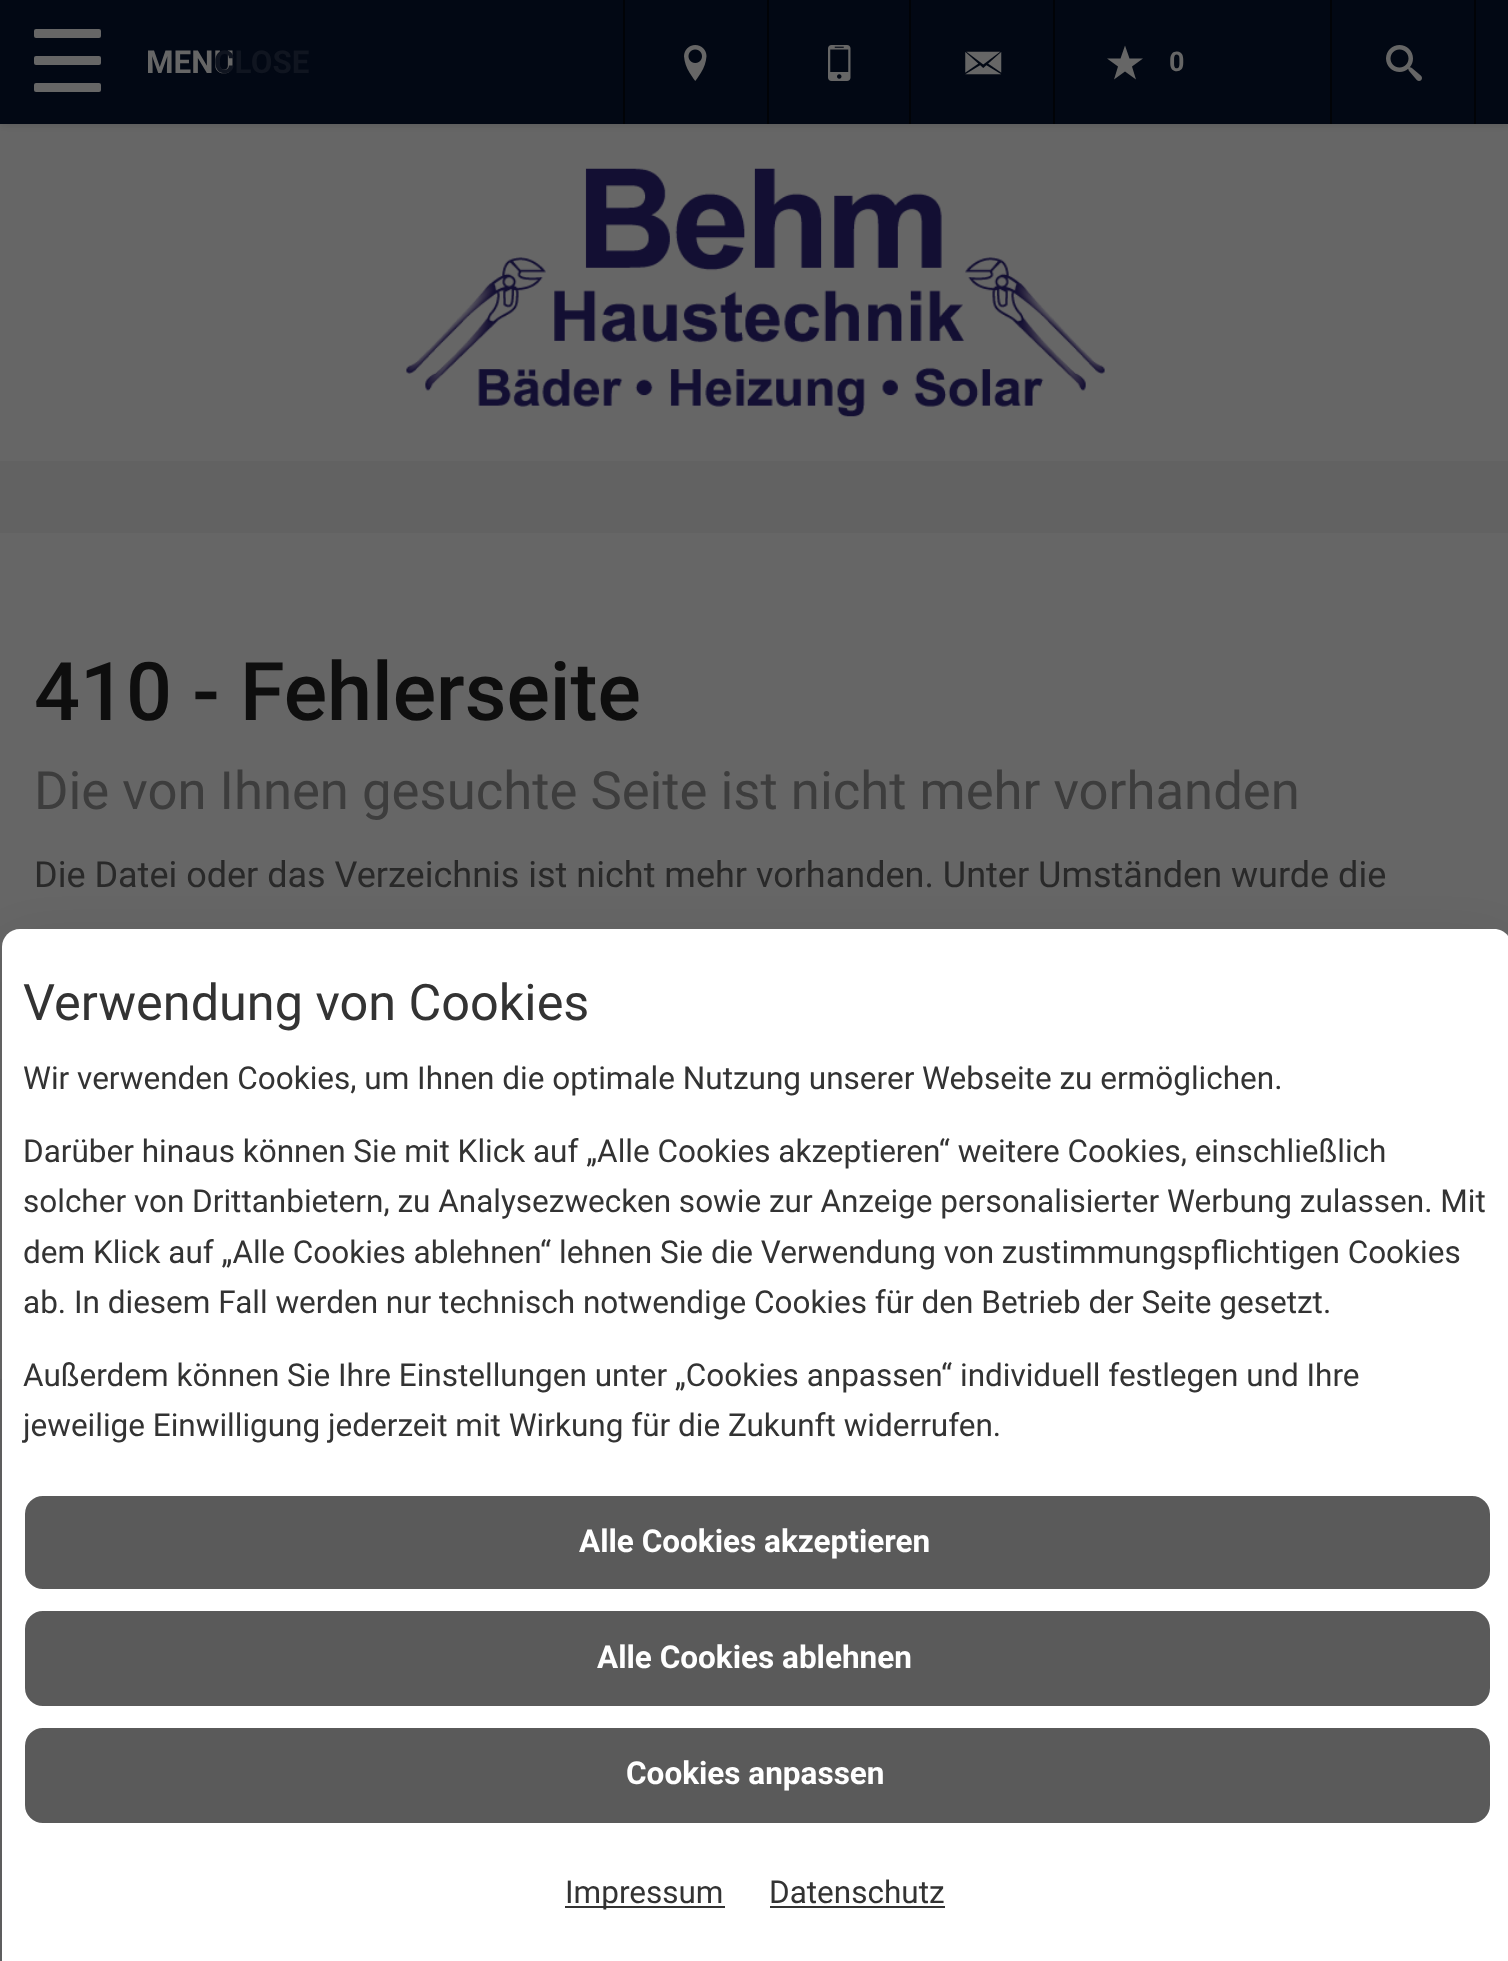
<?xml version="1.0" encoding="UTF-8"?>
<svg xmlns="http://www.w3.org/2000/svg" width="1508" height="1961">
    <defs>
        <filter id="blur1" x="-50%" y="-200%" width="200%" height="500%"><feGaussianBlur stdDeviation="3.5"/></filter>
        <filter id="blur2" x="-50%" y="-200%" width="200%" height="500%"><feGaussianBlur stdDeviation="31.5"/></filter>
    </defs>
    <rect width="100%" height="100%" fill="#666666"/>
    <rect x="0" y="2" width="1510" height="124" fill="#000000" fill-opacity="0.1" filter="url(#blur1)"/>
    <rect x="0" y="0" width="1508" height="124" fill="#020814"/>
    <rect x="34" y="29" width="67" height="9" rx="2" fill="#666666"/>
    <rect x="34" y="56" width="67" height="9" rx="2" fill="#666666"/>
    <rect x="34" y="83" width="67" height="9" rx="2" fill="#666666"/>
    <text x="146" y="73" font-family="Roboto" font-size="31.5" font-weight="700" fill="#666666">MENU</text>
    <text x="214" y="73" font-family="Roboto" font-size="31.5" font-weight="700" fill="#101520">CLOSE</text>
    <rect x="623" y="0" width="2" height="124" fill="#010307"/>
    <image x="684" y="45" width="23" height="36" href="img_01.png"/>
    <rect x="767" y="0" width="2" height="124" fill="#010307"/>
    <image x="828" y="45" width="23" height="36" href="img_02.png"/>
    <rect x="909" y="0" width="2" height="124" fill="#010307"/>
    <image x="965" y="51" width="37" height="24" href="img_03.png"/>
    <rect x="1053" y="0" width="2" height="124" fill="#010307"/>
    <path d="M 1143 58.5 H 1129.5 L 1125 45.5 L 1120.5 58.5 H 1107 L 1118 66.5 L 1114 79.5 L 1125 71.5 L 1136 79.5 L 1132 66.5 Z" fill="#666666"/>
    <text x="1169" y="71" font-family="Roboto" font-size="27" font-weight="700" fill="#666666">0</text>
    <rect x="1474" y="0" width="2" height="124" fill="#010307"/>
    <rect x="1330" y="0" width="2" height="124" fill="#010307"/>
    <image x="1386" y="45" width="36" height="36" href="img_04.png"/>
    <image x="406" y="168" width="699" height="249" href="img_05.png"/>
    <rect x="0" y="461" width="1508" height="72" fill="#626262"/>
    <text x="34" y="720" font-family="Roboto" font-size="81" font-weight="500" fill="#0E0E0E">410 - Fehlerseite</text>
    <text x="34" y="809" font-family="Roboto" font-size="52.65" fill="#3D3D3D">Die von Ihnen gesuchte Seite ist nicht mehr vorhanden</text>
    <text x="34" y="887" font-family="Roboto" font-size="36" fill="#292929">Die Datei oder das Verzeichnis ist nicht mehr vorhanden. Unter Umständen wurde die</text>
    <rect x="0" y="1379" width="2" height="582" fill="#626263"/>
    <rect x="2" y="943" width="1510" height="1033" rx="18" fill="#000000" fill-opacity="0.1" filter="url(#blur2)"/>
    <path d="M 20 929 H 1494 C 1504 929 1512 937 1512 947 V 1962 H 2 V 947 C 2 937 10 929 20 929 Z" fill="#FFFFFF"/>
    <text x="23" y="1020" font-family="Roboto" font-size="50.4" fill="#333333">Verwendung von Cookies</text>
    <text x="23" y="1089" font-family="Roboto" font-size="31.5" fill="#333333">Wir verwenden Cookies, um Ihnen die optimale Nutzung unserer Webseite zu ermöglichen.</text>
    <text font-family="Roboto" font-size="31.5" fill="#333333">
        <tspan x="23" y="1162">Darüber hinaus können Sie mit Klick auf „Alle Cookies akzeptieren“ weitere Cookies, einschließlich</tspan>
        <tspan x="23" y="1212">solcher von Drittanbietern, zu Analysezwecken sowie zur Anzeige personalisierter Werbung zulassen. Mit</tspan>
        <tspan x="23" y="1263">dem Klick auf „Alle Cookies ablehnen“ lehnen Sie die Verwendung von zustimmungspflichtigen Cookies</tspan>
        <tspan x="23" y="1313">ab. In diesem Fall werden nur technisch notwendige Cookies für den Betrieb der Seite gesetzt.</tspan>
    </text>
    <text font-family="Roboto" font-size="31.5" fill="#333333">
        <tspan x="23" y="1386">Außerdem können Sie Ihre Einstellungen unter „Cookies anpassen“ individuell festlegen und Ihre</tspan>
        <tspan x="23" y="1436">jeweilige Einwilligung jederzeit mit Wirkung für die Zukunft widerrufen.</tspan>
    </text>
    <rect x="26" y="1497" width="1463" height="91" rx="17" fill="#5A5A5A" stroke="#5A5A5A" stroke-width="2"/>
    <text x="579" y="1552" font-family="Roboto" font-size="31.5" font-weight="700" fill="#FFFFFF">Alle Cookies akzeptieren</text>
    <rect x="26" y="1612" width="1463" height="93" rx="17" fill="#5A5A5A" stroke="#5A5A5A" stroke-width="2"/>
    <text x="597" y="1668" font-family="Roboto" font-size="31.5" font-weight="700" fill="#FFFFFF">Alle Cookies ablehnen</text>
    <rect x="26" y="1729" width="1463" height="93" rx="17" fill="#5A5A5A" stroke="#5A5A5A" stroke-width="2"/>
    <text x="626" y="1784" font-family="Roboto" font-size="31.5" font-weight="700" fill="#FFFFFF">Cookies anpassen</text>
    <rect x="565" y="1906" width="160" height="2" fill="#333333"/>
    <text x="565" y="1903" font-family="Roboto" font-size="31.5" fill="#333333">Impressum</text>
    <text x="769" y="1903" font-family="Roboto" font-size="31.5" fill="#333333">Datenschutz</text>
    <rect x="770" y="1906" width="175" height="2" fill="#333333"/>
</svg>
